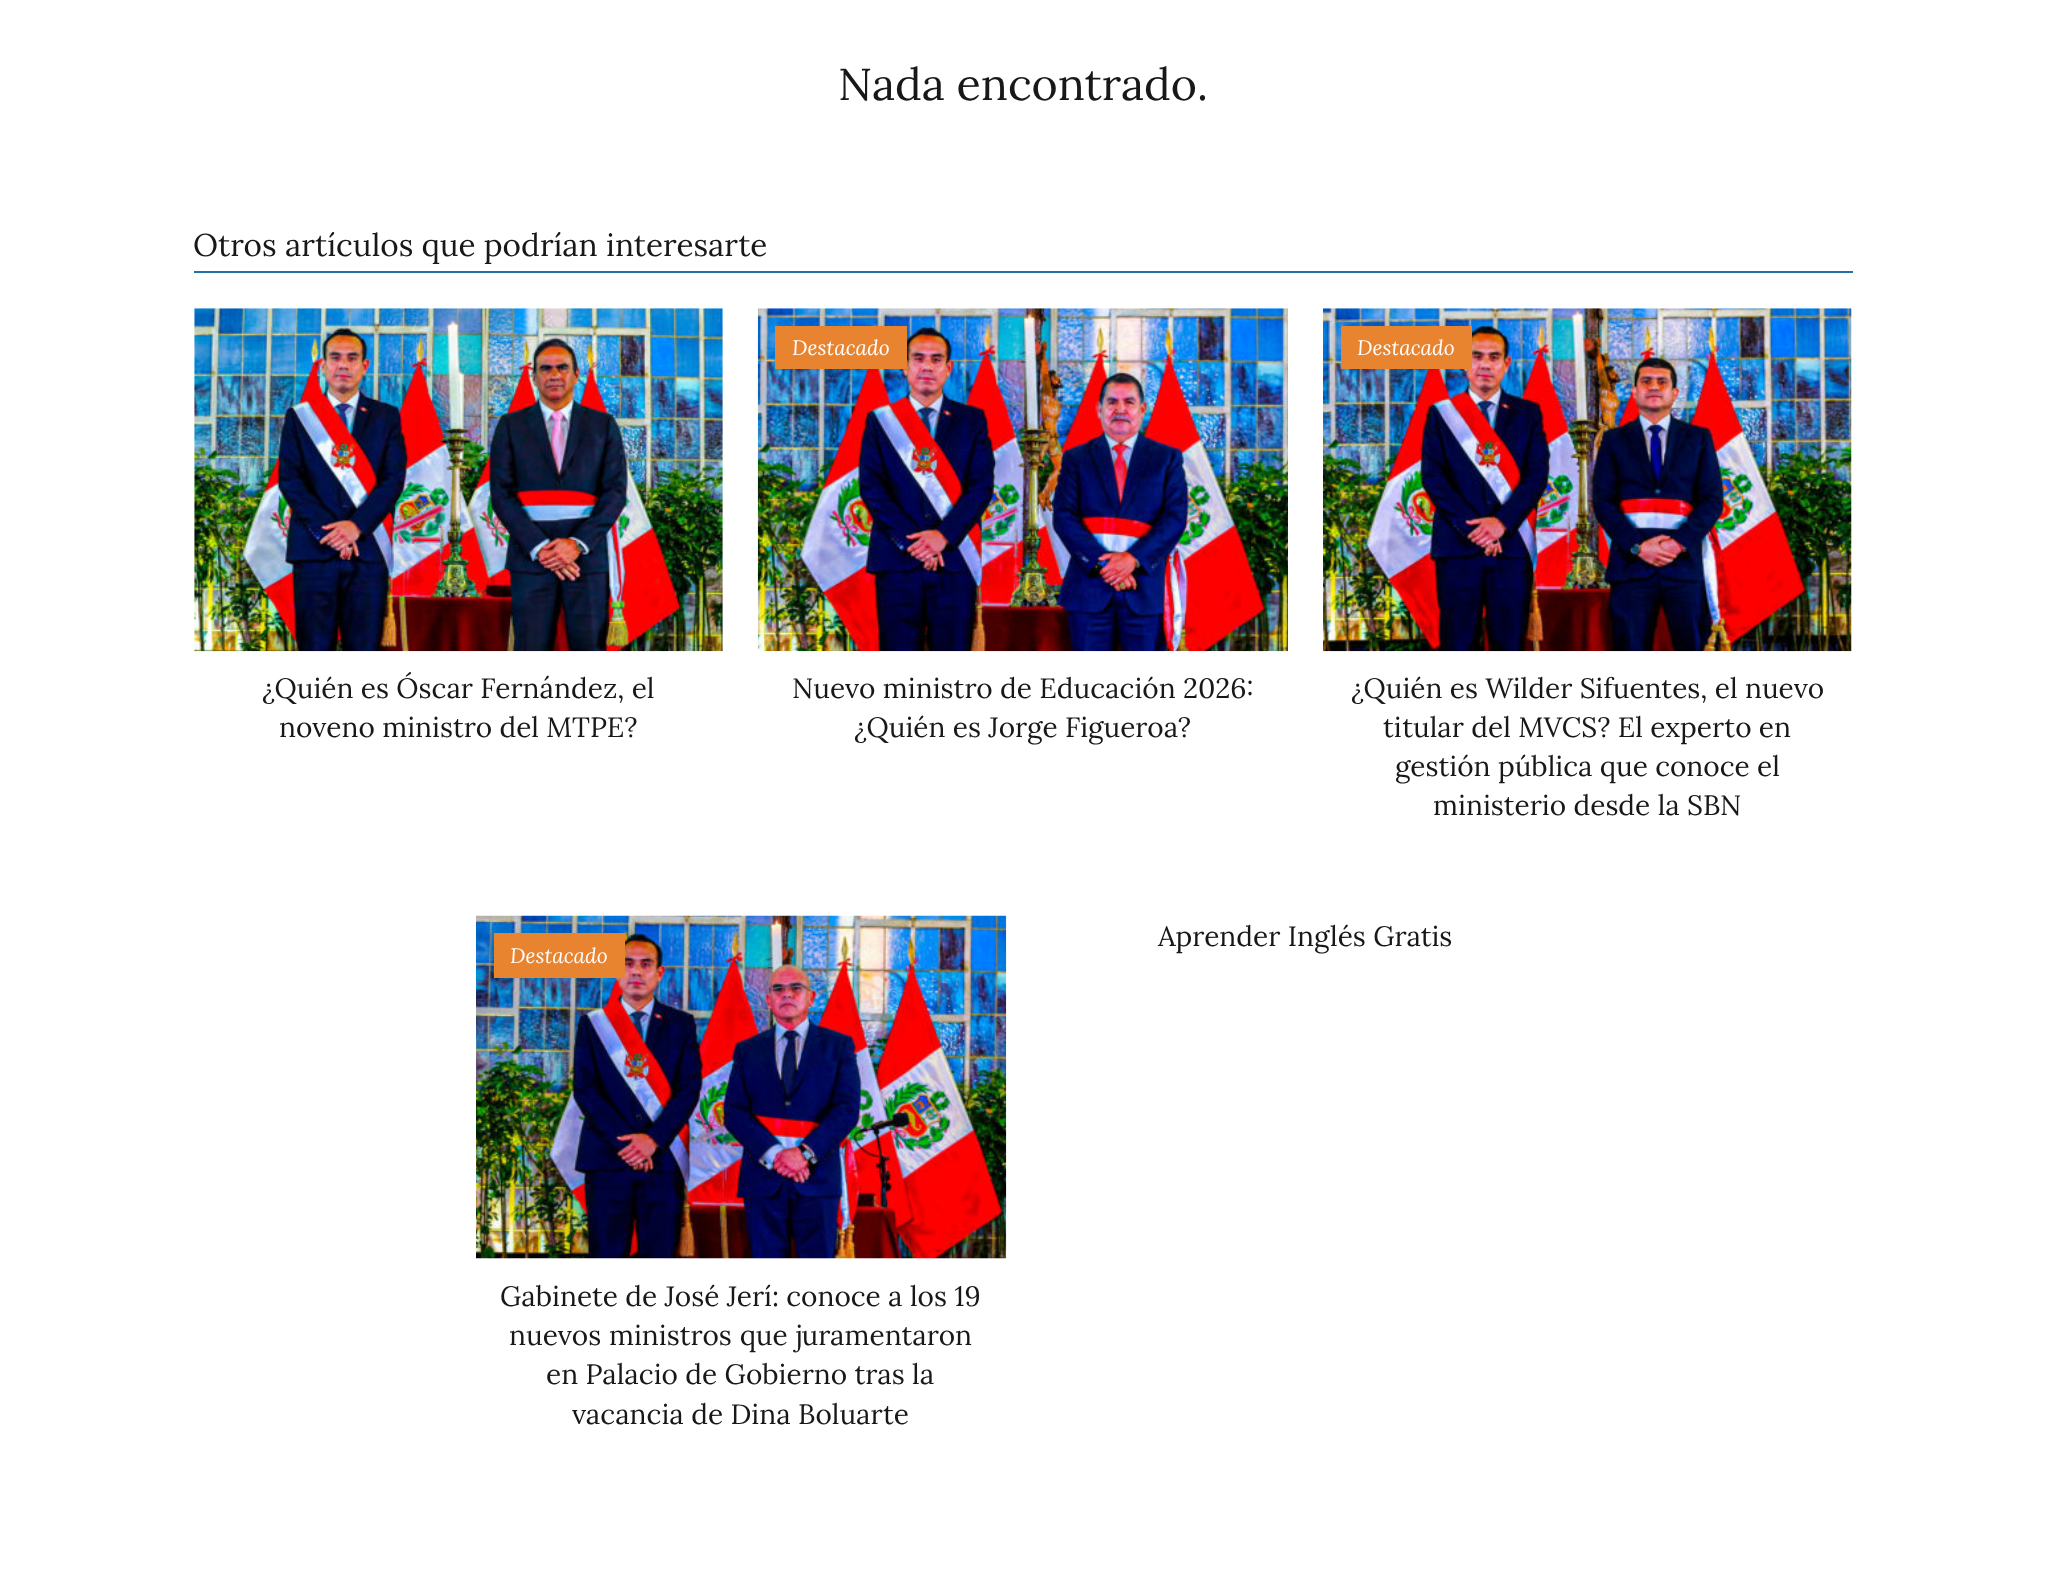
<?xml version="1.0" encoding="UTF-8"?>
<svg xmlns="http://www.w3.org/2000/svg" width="2045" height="1580">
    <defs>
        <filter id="blur1" x="-50%" y="-200%" width="200%" height="500%"><feGaussianBlur stdDeviation="4.5"/></filter>
    </defs>
    <rect width="100%" height="100%" fill="#FFFFFF"/>
    <text x="838" y="100" font-family="Lora" font-size="44.75" fill="#181818">Nada encontrado.</text>
    <rect x="194" y="271" width="1659" height="2" fill="#2471A3"/>
    <text x="193" y="256" font-family="Lora" font-size="31.5" fill="#181818">Otros artículos que podrían interesarte</text>
    <image x="194" y="308" width="529" height="344" href="img_01.png"/>
    <text x="262" y="698" font-family="Lora" font-size="28" fill="#181818">¿Quién es Óscar Fernández, el</text>
    <text x="279" y="737" font-family="Lora" font-size="28" fill="#181818">noveno ministro del MTPE?</text>
    <image x="757" y="308" width="531" height="344" href="img_02.png"/>
    <rect x="775" y="326" width="132" height="43" fill="#000000" fill-opacity="0.1" filter="url(#blur1)"/>
    <rect x="775" y="326" width="132" height="43" fill="#E88330"/>
    <text x="792" y="355" font-family="Lora" font-size="21" font-style="italic" fill="#FFFFFF">Destacado</text>
    <text x="792" y="698" font-family="Lora" font-size="28" fill="#181818">Nuevo ministro de Educación 2026:</text>
    <text x="854" y="737" font-family="Lora" font-size="28" fill="#181818">¿Quién es Jorge Figueroa?</text>
    <image x="1323" y="308" width="529" height="344" href="img_03.png"/>
    <rect x="1341" y="326" width="131" height="43" fill="#000000" fill-opacity="0.1" filter="url(#blur1)"/>
    <rect x="1341" y="326" width="131" height="43" fill="#E88330"/>
    <text x="1357" y="355" font-family="Lora" font-size="21" font-style="italic" fill="#FFFFFF">Destacado</text>
    <text x="1351" y="698" font-family="Lora" font-size="28" fill="#181818">¿Quién es Wilder Sifuentes, el nuevo</text>
    <text x="1383" y="737" font-family="Lora" font-size="28" fill="#181818">titular del MVCS? El experto en</text>
    <text x="1395" y="776" font-family="Lora" font-size="28" fill="#181818">gestión pública que conoce el</text>
    <text x="1433" y="815" font-family="Lora" font-size="28" fill="#181818">ministerio desde la SBN</text>
    <text x="1158" y="946" font-family="Lora" font-size="28" fill="#181818">Aprender Inglés Gratis</text>
    <image x="476" y="915" width="531" height="344" href="img_04.png"/>
    <rect x="494" y="933" width="131" height="45" fill="#000000" fill-opacity="0.1" filter="url(#blur1)"/>
    <rect x="494" y="933" width="131" height="45" fill="#E88330"/>
    <text x="510" y="963" font-family="Lora" font-size="21" font-style="italic" fill="#FFFFFF">Destacado</text>
    <text x="500" y="1306" font-family="Lora" font-size="28" fill="#181818">Gabinete de José Jerí: conoce a los 19</text>
    <text x="509" y="1345" word-spacing="0.5" font-family="Lora" font-size="28" fill="#181818">nuevos ministros que juramentaron</text>
    <text x="546" y="1384" font-family="Lora" font-size="28" fill="#181818">en Palacio de Gobierno tras la</text>
    <text x="572" y="1424" font-family="Lora" font-size="28" fill="#181818">vacancia de Dina Boluarte</text>
</svg>
